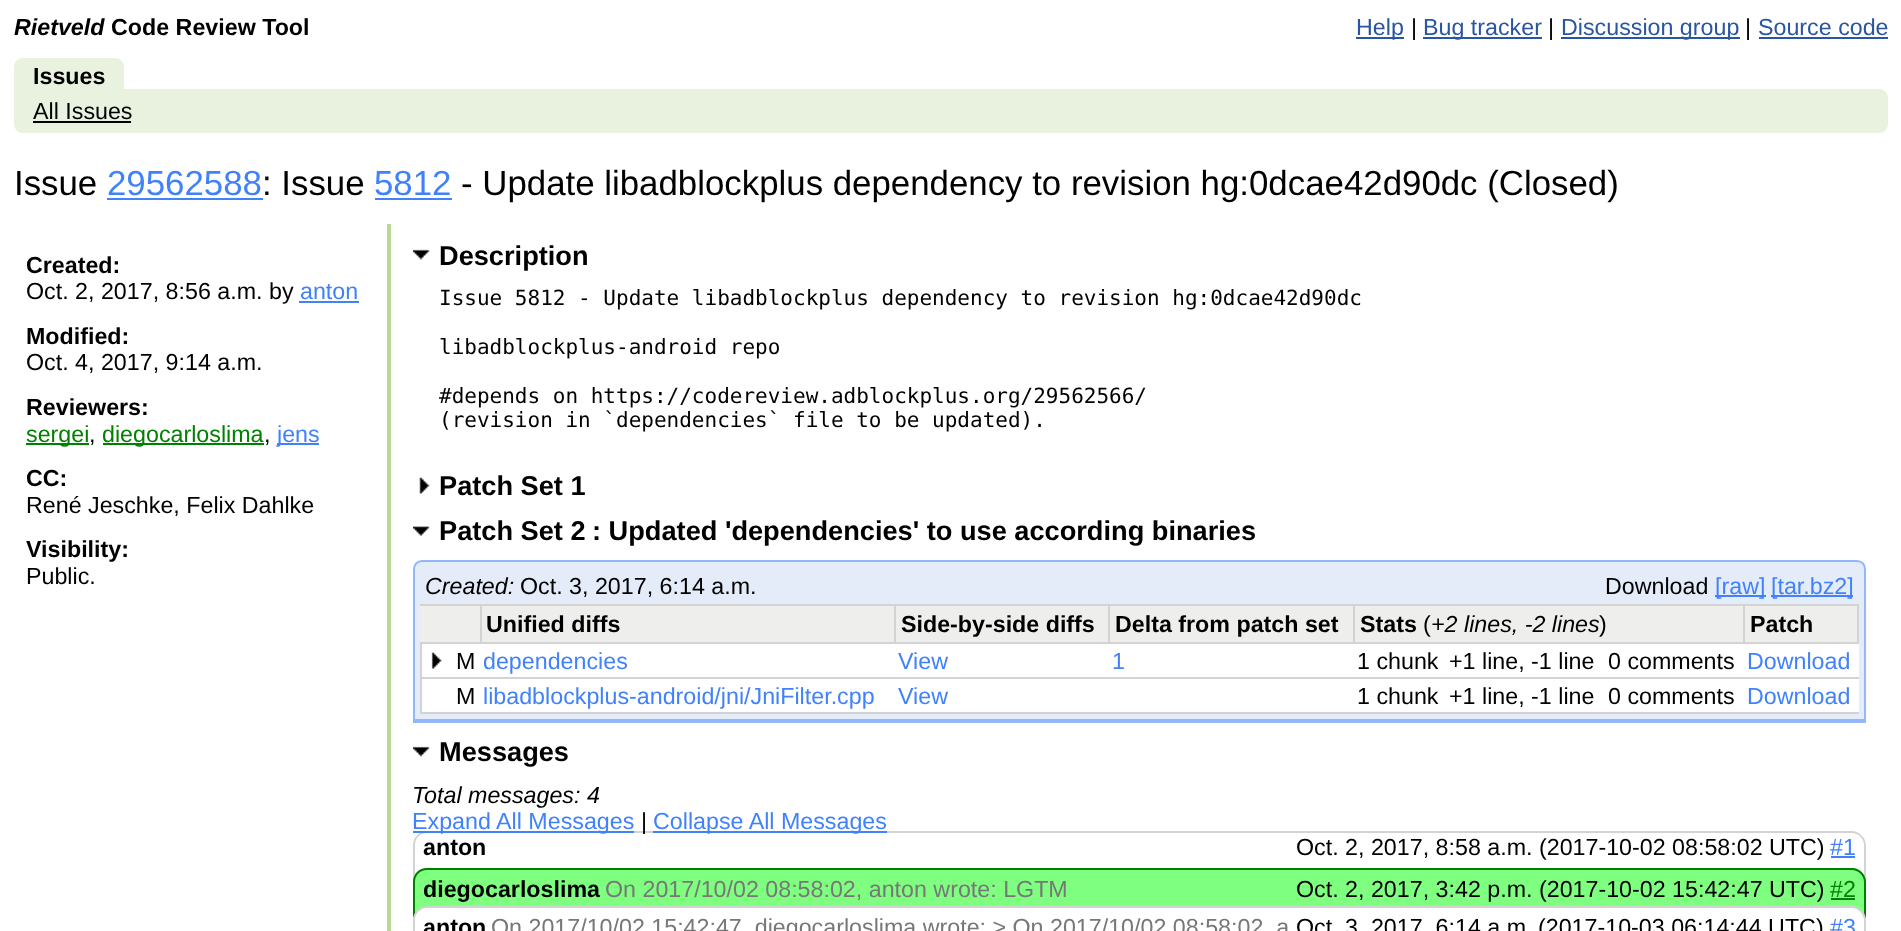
<?xml version="1.0" encoding="UTF-8"?>
<svg xmlns="http://www.w3.org/2000/svg" width="1901" height="931">
    <rect width="100%" height="100%" fill="#FFFFFF"/>
    <text x="14" y="35" font-family="Liberation Sans" font-size="23.25" font-weight="700" font-style="italic" fill="#000000">Rietveld</text>
    <text x="111" y="35" font-family="Liberation Sans" font-size="23.25" font-weight="700" fill="#000000">Code Review Tool</text>
    <rect x="1356" y="37" width="48" height="2" fill="#2A55A3"/>
    <text x="1356" y="35" font-family="Liberation Sans" font-size="23.25" fill="#2A55A3">Help</text>
    <text x="1411" y="35" font-family="Liberation Sans" font-size="23.25" fill="#000000">|</text>
    <rect x="1423" y="37" width="119" height="2" fill="#2A55A3"/>
    <text x="1423" y="35" font-family="Liberation Sans" font-size="23.25" fill="#2A55A3">Bug tracker</text>
    <text x="1548" y="35" font-family="Liberation Sans" font-size="23.25" fill="#000000">|</text>
    <rect x="1561" y="37" width="179" height="2" fill="#2A55A3"/>
    <text x="1561" y="35" font-family="Liberation Sans" font-size="23.25" fill="#2A55A3">Discussion group</text>
    <text x="1745" y="35" font-family="Liberation Sans" font-size="23.25" fill="#000000">|</text>
    <text x="1758" y="35" font-family="Liberation Sans" font-size="23.25" fill="#2A55A3">Source code</text>
    <rect x="1759" y="37" width="129" height="2" fill="#2A55A3"/>
    <path d="M 23 58 H 115 C 120 58 124 62 124 67 V 89 H 14 V 67 C 14 62 18 58 23 58 Z" fill="#E9F2DF"/>
    <text x="33" y="84" font-family="Liberation Sans" font-size="23.25" font-weight="700" fill="#000000">Issues</text>
    <path d="M 14 89 H 1879 C 1884 89 1888 93 1888 98 V 124 C 1888 129 1884 133 1879 133 H 23 C 18 133 14 129 14 124 Z" fill="#E9F2DF"/>
    <text x="33" y="119" font-family="Liberation Sans" font-size="23.25" fill="#000000">All Issues</text>
    <rect x="33" y="121" width="98" height="2" fill="#000000"/>
    <text x="14" y="195" font-family="Liberation Sans" font-size="34.85" fill="#000000">Issue</text>
    <text x="107" y="195" font-family="Liberation Sans" font-size="34.85" fill="#4182FA">29562588</text>
    <rect x="107" y="198" width="156" height="2" fill="#4182FA"/>
    <text x="262" y="195" font-family="Liberation Sans" font-size="34.85" fill="#000000">: Issue</text>
    <text x="374" y="195" font-family="Liberation Sans" font-size="34.85" fill="#4182FA">5812</text>
    <rect x="375" y="198" width="77" height="2" fill="#4182FA"/>
    <text x="461" y="195" font-family="Liberation Sans" font-size="34.85" fill="#000000">- Update libadblockplus dependency to revision hg:0dcae42d90dc (Closed)</text>
    <rect x="387" y="224" width="4" height="707" fill="#B7D993"/>
    <text x="26" y="273" font-family="Liberation Sans" font-size="23.25" font-weight="700" fill="#000000">Created:</text>
    <text x="26" y="299" font-family="Liberation Sans" font-size="23.25" fill="#000000">Oct. 2, 2017, 8:56 a.m. by</text>
    <text x="300" y="299" font-family="Liberation Sans" font-size="23.25" fill="#4182FA">anton</text>
    <rect x="299" y="301" width="60" height="2" fill="#4182FA"/>
    <text x="26" y="344" font-family="Liberation Sans" font-size="23.25" font-weight="700" fill="#000000">Modified:</text>
    <text x="26" y="370" font-family="Liberation Sans" font-size="23.25" fill="#000000">Oct. 4, 2017, 9:14 a.m.</text>
    <text x="26" y="415" font-family="Liberation Sans" font-size="23.25" font-weight="700" fill="#000000">Reviewers:</text>
    <rect x="26" y="443" width="63" height="2" fill="#008000"/>
    <text x="26" y="442" font-family="Liberation Sans" font-size="23.25" fill="#008000">sergei</text>
    <text x="89" y="442" font-family="Liberation Sans" font-size="23.25" fill="#000000">,</text>
    <rect x="103" y="443" width="161" height="2" fill="#008000"/>
    <text x="102" y="442" font-family="Liberation Sans" font-size="23.25" fill="#008000">diegocarloslima</text>
    <text x="264" y="442" font-family="Liberation Sans" font-size="23.25" fill="#000000">,</text>
    <rect x="277" y="443" width="42" height="2" fill="#4182FA"/>
    <text x="277" y="442" font-family="Liberation Sans" font-size="23.25" fill="#4182FA">jens</text>
    <text x="26" y="486" font-family="Liberation Sans" font-size="23.25" font-weight="700" fill="#000000">CC:</text>
    <text x="26" y="513" font-family="Liberation Sans" font-size="23.25" fill="#000000">René Jeschke, Felix Dahlke</text>
    <text x="26" y="557" font-family="Liberation Sans" font-size="23.25" font-weight="700" fill="#000000">Visibility:</text>
    <text x="26" y="584" font-family="Liberation Sans" font-size="23.25" fill="#000000">Public.</text>
    <image x="413" y="249" width="17" height="11" href="img_01.png"/>
    <text x="439" y="265" font-family="Liberation Sans" font-size="27.2" font-weight="700" fill="#000000">Description</text>
    <text x="439" y="305" font-family="DejaVu Sans Mono" font-size="21" fill="#000000">Issue 5812 - Update libadblockplus dependency to revision hg:0dcae42d90dc</text>
    <text x="439" y="354" font-family="DejaVu Sans Mono" font-size="21" fill="#000000">libadblockplus-android repo</text>
    <text font-family="DejaVu Sans Mono" font-size="21" fill="#000000">
        <tspan x="439" y="403">#depends on https://codereview.adblockplus.org/29562566/</tspan>
        <tspan x="439" y="427">(revision in `dependencies` file to be updated).</tspan>
    </text>
    <image x="419" y="477" width="11" height="17" href="img_02.png"/>
    <text x="439" y="495" font-family="Liberation Sans" font-size="27.2" font-weight="700" fill="#000000">Patch Set 1</text>
    <image x="413" y="526" width="17" height="10" href="img_03.png"/>
    <text x="439" y="540" font-family="Liberation Sans" font-size="27.2" font-weight="700" fill="#000000">Patch Set 2</text>
    <text x="592" y="540" font-family="Liberation Sans" font-size="27.2" font-weight="700" fill="#000000">: Updated 'dependencies' to use according binaries</text>
    <path d="M 422 562 H 1857 C 1861 562 1864 565 1864 569 V 719 H 415 V 569 C 415 565 418 562 422 562 Z" fill="#E5ECF9"/>
    <path d="M 422 561 H 1857 C 1861.5 561 1865 564.5 1865 569 V 722 H 414 V 569 C 414 564.5 417.5 561 422 561 Z" fill="none" stroke="#93B7FA" stroke-width="2"/>
    <rect x="413" y="719" width="1453" height="2" fill="#93B7FA"/>
    <text x="425" y="594" font-family="Liberation Sans" font-size="23.25" font-style="italic" fill="#000000">Created:</text>
    <text x="520" y="594" font-family="Liberation Sans" font-size="23.25" fill="#000000">Oct. 3, 2017, 6:14 a.m.</text>
    <text x="1605" y="594" font-family="Liberation Sans" font-size="23.25" fill="#000000">Download</text>
    <rect x="1715" y="595" width="51" height="2" fill="#4182FA"/>
    <text x="1715" y="594" font-family="Liberation Sans" font-size="23.25" fill="#4182FA">[raw]</text>
    <rect x="1771" y="595" width="82" height="2" fill="#4182FA"/>
    <text x="1771" y="594" font-family="Liberation Sans" font-size="23.25" fill="#4182FA">[tar.bz2]</text>
    <rect x="422" y="644" width="1437" height="68" fill="#FFFFFF"/>
    <rect x="420" y="642" width="1439" height="2" fill="#D3D3D3"/>
    <rect x="420" y="606" width="60" height="36" fill="#EEEEEC"/>
    <rect x="420" y="604" width="1439" height="2" fill="#D3D3D3"/>
    <rect x="480" y="604" width="2" height="40" fill="#D3D3D3"/>
    <rect x="482" y="606" width="412" height="36" fill="#EEEEEC"/>
    <rect x="894" y="604" width="2" height="40" fill="#D3D3D3"/>
    <text x="486" y="632" font-family="Liberation Sans" font-size="23.25" font-weight="700" fill="#000000">Unified diffs</text>
    <rect x="896" y="606" width="212" height="36" fill="#EEEEEC"/>
    <rect x="1108" y="604" width="2" height="40" fill="#D3D3D3"/>
    <text x="901" y="632" font-family="Liberation Sans" font-size="23.25" font-weight="700" fill="#000000">Side-by-side diffs</text>
    <rect x="1110" y="606" width="243" height="36" fill="#EEEEEC"/>
    <rect x="1353" y="604" width="2" height="40" fill="#D3D3D3"/>
    <text x="1115" y="632" font-family="Liberation Sans" font-size="23.25" font-weight="700" fill="#000000">Delta from patch set</text>
    <rect x="1355" y="606" width="388" height="36" fill="#EEEEEC"/>
    <rect x="1743" y="604" width="2" height="40" fill="#D3D3D3"/>
    <text x="1360" y="632" font-family="Liberation Sans" font-size="23.25" font-weight="700" fill="#000000">Stats</text>
    <text x="1423" y="632" font-family="Liberation Sans" font-size="23.25" fill="#000000">(</text>
    <text x="1431" y="632" font-family="Liberation Sans" font-size="23.25" font-style="italic" fill="#000000">+2 lines, -2 lines</text>
    <text x="1599" y="632" font-family="Liberation Sans" font-size="23.25" fill="#000000">)</text>
    <rect x="1745" y="606" width="112" height="36" fill="#EEEEEC"/>
    <rect x="1857" y="604" width="2" height="40" fill="#D3D3D3"/>
    <text x="1750" y="632" font-family="Liberation Sans" font-size="23.25" font-weight="700" fill="#000000">Patch</text>
    <rect x="420" y="677" width="1439" height="2" fill="#D3D3D3"/>
    <image x="431" y="652" width="11" height="17" href="img_04.png"/>
    <text x="456" y="669" font-family="Liberation Sans" font-size="23.25" fill="#000000">M</text>
    <text x="483" y="669" font-family="Liberation Sans" font-size="23.25" fill="#4182FA">dependencies</text>
    <text x="898" y="669" font-family="Liberation Sans" font-size="23.25" fill="#4182FA">View</text>
    <text x="1112" y="669" font-family="Liberation Sans" font-size="23.25" fill="#4182FA">1</text>
    <text x="1357" y="669" font-family="Liberation Sans" font-size="23.25" fill="#000000">1 chunk</text>
    <text x="1449" y="669" font-family="Liberation Sans" font-size="23.25" fill="#000000">+1 line, -1 line</text>
    <text x="1608" y="669" font-family="Liberation Sans" font-size="23.25" fill="#000000">0 comments</text>
    <text x="1747" y="669" font-family="Liberation Sans" font-size="23.25" fill="#4182FA">Download</text>
    <rect x="420" y="712" width="1439" height="2" fill="#D3D3D3"/>
    <rect x="420" y="642" width="2" height="72" fill="#D3D3D3"/>
    <text x="456" y="704" font-family="Liberation Sans" font-size="23.25" fill="#000000">M</text>
    <text x="483" y="704" font-family="Liberation Sans" font-size="23.25" fill="#4182FA">libadblockplus-android/jni/JniFilter.cpp</text>
    <text x="898" y="704" font-family="Liberation Sans" font-size="23.25" fill="#4182FA">View</text>
    <text x="1357" y="704" font-family="Liberation Sans" font-size="23.25" fill="#000000">1 chunk</text>
    <text x="1449" y="704" font-family="Liberation Sans" font-size="23.25" fill="#000000">+1 line, -1 line</text>
    <text x="1608" y="704" font-family="Liberation Sans" font-size="23.25" fill="#000000">0 comments</text>
    <text x="1747" y="704" font-family="Liberation Sans" font-size="23.25" fill="#4182FA">Download</text>
    <image x="413" y="746" width="17" height="11" href="img_01.png"/>
    <text x="439" y="761" font-family="Liberation Sans" font-size="27.2" font-weight="700" fill="#000000">Messages</text>
    <text x="412" y="803" font-family="Liberation Sans" font-size="23.25" font-style="italic" fill="#000000">Total messages: 4</text>
    <path d="M 427 831 H 1852 C 1859 831 1866 838 1866 845 V 882 H 413 V 845 C 413 838 419 831 427 831 Z M 427 833 H 1852 C 1858 833 1864 838 1864 845 V 882 H 415 V 845 C 415 838 420 833 427 833 Z" fill="#D3D3D3" fill-rule="evenodd"/>
    <rect x="413" y="831" width="221" height="2" fill="#4182FA"/>
    <text x="412" y="829" font-family="Liberation Sans" font-size="23.25" fill="#4182FA">Expand All Messages</text>
    <text x="641" y="829" font-family="Liberation Sans" font-size="23.25" fill="#000000">|</text>
    <rect x="653" y="831" width="234" height="2" fill="#4182FA"/>
    <text x="653" y="829" font-family="Liberation Sans" font-size="23.25" fill="#4182FA">Collapse All Messages</text>
    <text x="423" y="855" font-family="Liberation Sans" font-size="23.25" font-weight="700" fill="#000000">anton</text>
    <text x="1296" y="855" font-family="Liberation Sans" font-size="23.25" fill="#000000">Oct. 2, 2017, 8:58 a.m. (2017-10-02 08:58:02 UTC)</text>
    <text x="1830" y="855" font-family="Liberation Sans" font-size="23.25" fill="#4182FA">#1</text>
    <rect x="1831" y="856" width="24" height="2" fill="#4182FA"/>
    <path d="M 427 868 H 1852 C 1859.5 868 1866 874.5 1866 882 V 921 H 413 V 882 C 413 874.5 419.5 868 427 868 Z" fill="#7FFF7F"/>
    <path d="M 427 868 H 1852 C 1859 868 1866 874 1866 882 V 920 H 413 V 882 C 413 874 419 868 427 868 Z M 427 870 H 1852 C 1858 870 1864 875 1864 882 V 920 H 415 V 882 C 415 875 420 870 427 870 Z" fill="#008000" fill-rule="evenodd"/>
    <text x="423" y="897" font-family="Liberation Sans" font-size="23.25" font-weight="700" fill="#000000">diegocarloslima</text>
    <text x="605" y="897" font-family="Liberation Sans" font-size="23.25" fill="#777777">On 2017/10/02 08:58:02, anton wrote: LGTM</text>
    <text x="1296" y="897" font-family="Liberation Sans" font-size="23.25" fill="#000000">Oct. 2, 2017, 3:42 p.m. (2017-10-02 15:42:47 UTC)</text>
    <text x="1830" y="897" font-family="Liberation Sans" font-size="23.25" fill="#008000">#2</text>
    <rect x="1831" y="898" width="24" height="2" fill="#008000"/>
    <path d="M 427 907 H 1852 C 1859.5 907 1866 913.5 1866 921 V 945 H 413 V 921 C 413 913.5 419.5 907 427 907 Z" fill="#FFFFFF"/>
    <path d="M 427 906 H 1852 C 1859 906 1866 913 1866 920 V 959 H 413 V 920 C 413 913 419 906 427 906 Z M 427 908 H 1852 C 1858 908 1864 914 1864 920 V 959 H 415 V 920 C 415 914 420 908 427 908 Z" fill="#D3D3D3" fill-rule="evenodd"/>
    <text x="423" y="935" font-family="Liberation Sans" font-size="23.25" font-weight="700" fill="#000000">anton</text>
    <text x="491" y="935" font-family="Liberation Sans" font-size="23.25" fill="#777777">On 2017/10/02 15:42:47, diegocarloslima wrote: &gt; On 2017/10/02 08:58:02, a</text>
    <text x="1296" y="935" font-family="Liberation Sans" font-size="23.25" fill="#000000">Oct. 3, 2017, 6:14 a.m</text>
    <text x="1538" y="935" font-family="Liberation Sans" font-size="23.25" fill="#000000">(2017-10-03 06:14:44 UTC)</text>
    <text x="1830" y="935" font-family="Liberation Sans" font-size="23.25" fill="#4182FA">#3</text>
</svg>
